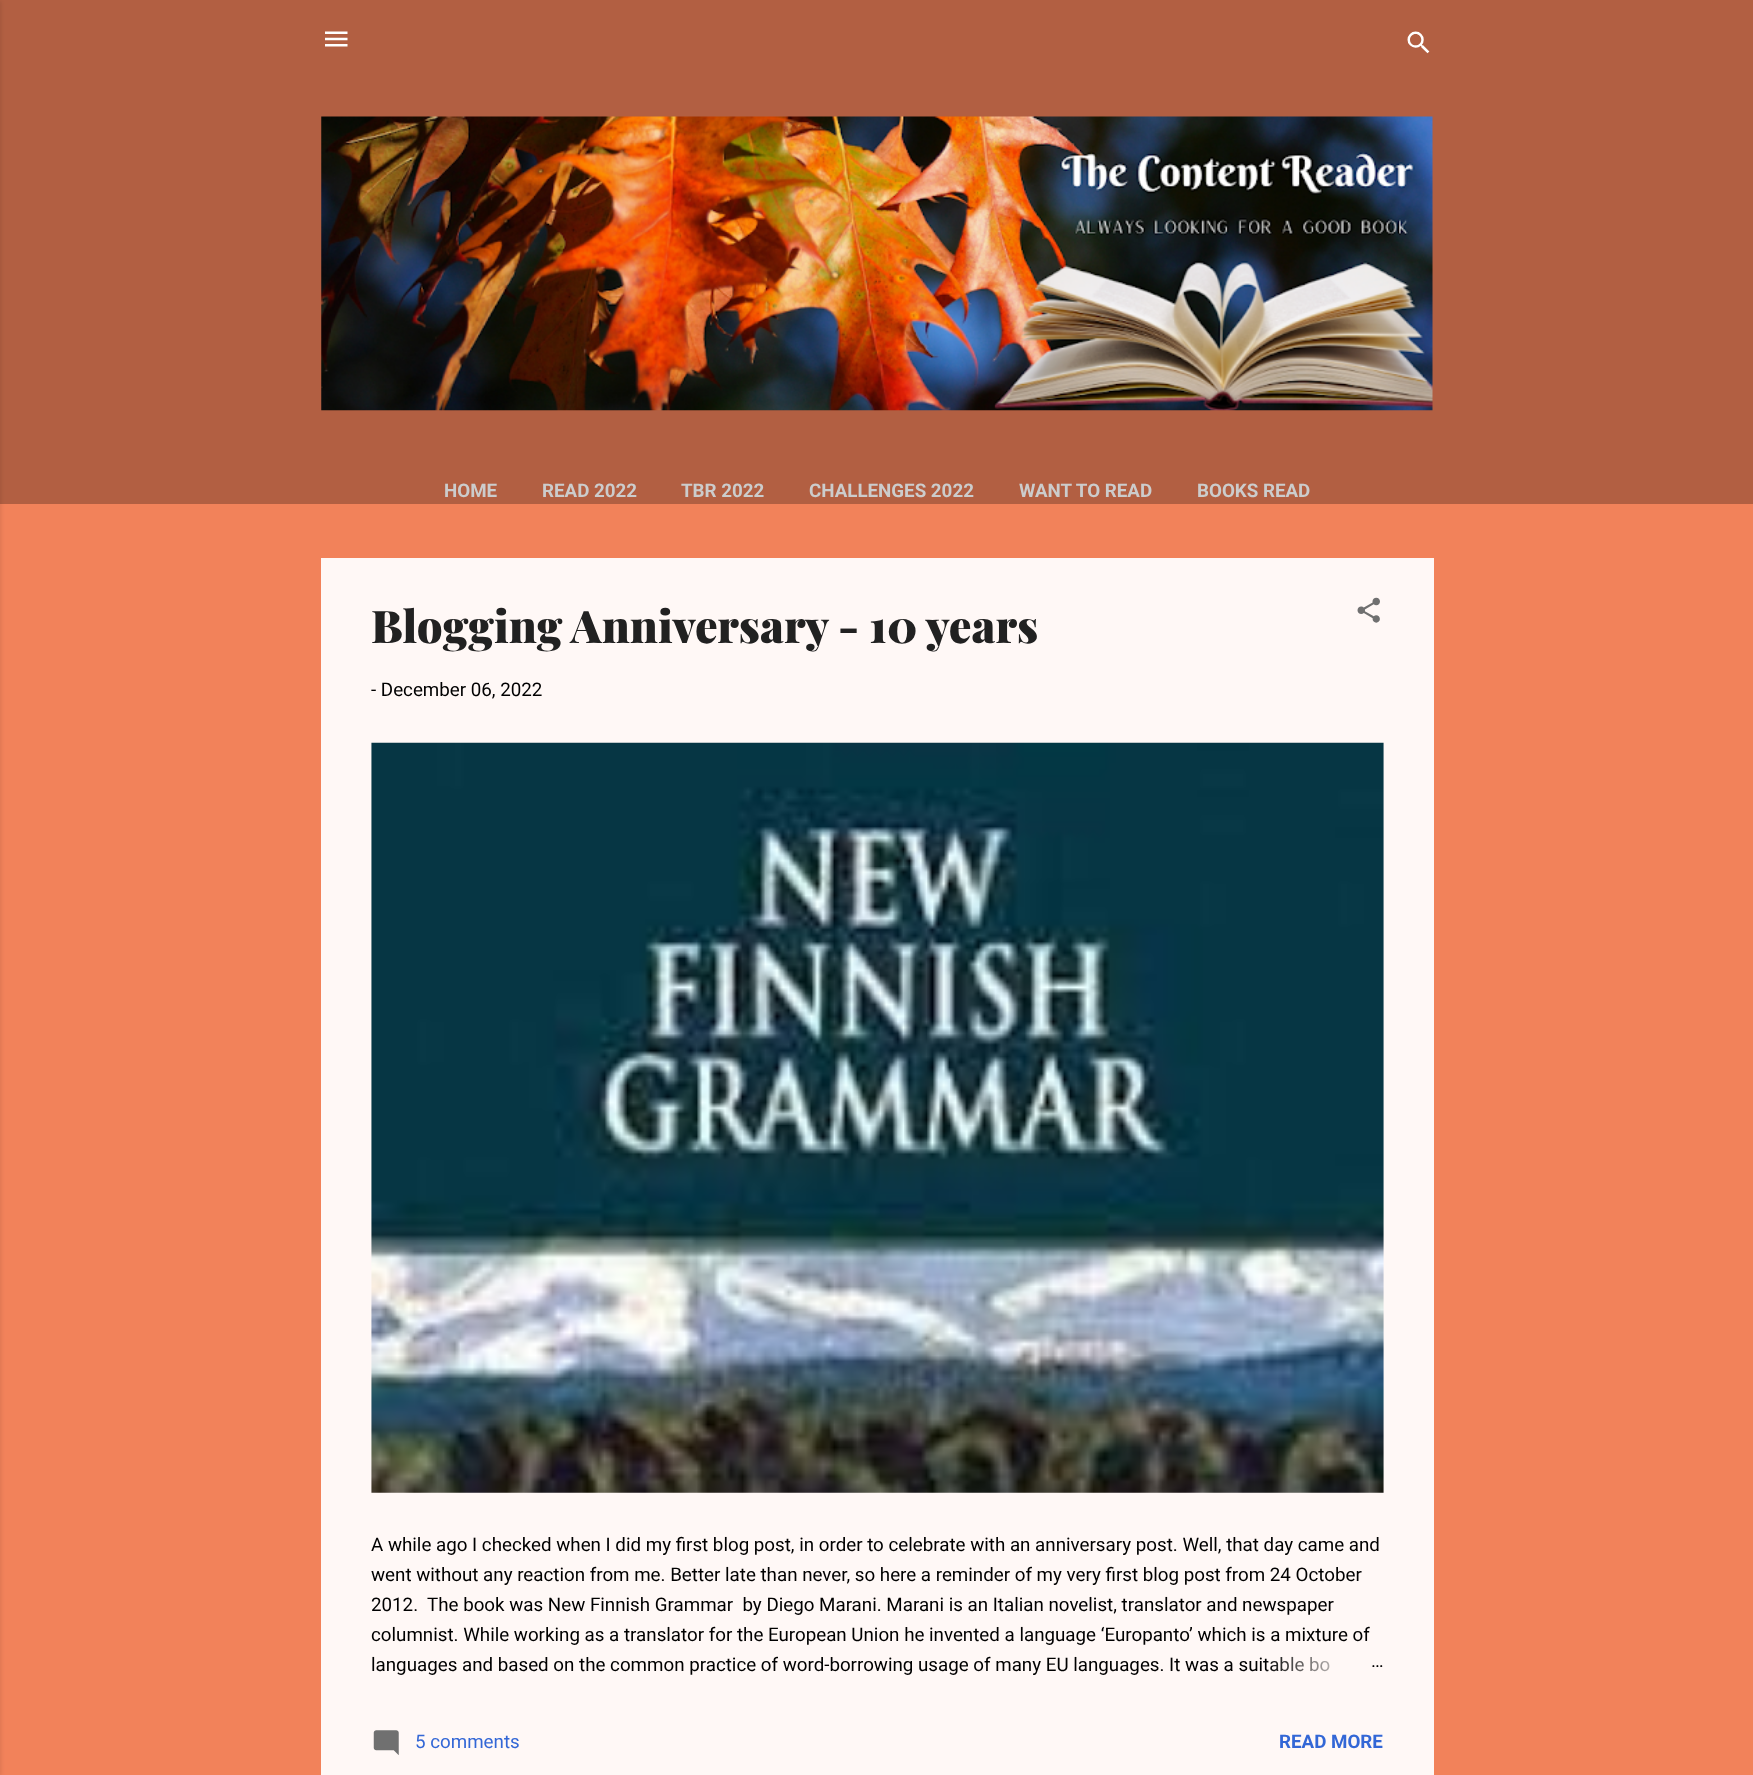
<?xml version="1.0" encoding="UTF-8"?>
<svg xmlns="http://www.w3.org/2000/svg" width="1753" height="1775">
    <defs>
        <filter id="blur1" x="-50%" y="-200%" width="200%" height="500%"><feGaussianBlur stdDeviation="2"/></filter>
        <linearGradient id="g1" gradientUnits="userSpaceOnUse" x1="1384" y1="1665" x2="1264" y2="1665"><stop offset="0" stop-color="#FFF8F6"/><stop offset="0.2" stop-color="#FFF8F6"/><stop offset="1" stop-color="#FFF8F6" stop-opacity="0"/></linearGradient>
    </defs>
    <rect width="100%" height="100%" fill="#F2825A"/>
    <rect x="0" y="0" width="1753" height="504" fill="#B25F42"/>
    <rect x="-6" y="1" width="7" height="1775" fill="#000000" fill-opacity="0.1" filter="url(#blur1)"/>
    <image x="325" y="31" width="23" height="16" href="img_01.png"/>
    <image x="1407" y="31" width="23" height="23" href="img_02.png"/>
    <image x="321" y="116" width="1112" height="295" href="img_03.png"/>
    <text x="444" y="497" font-family="Roboto" font-size="18.75" font-weight="700" fill="#CCCCCC">HOME</text>
    <text x="542" y="497" font-family="Roboto" font-size="18.75" font-weight="700" fill="#CCCCCC">READ 2022</text>
    <text x="681" y="497" font-family="Roboto" font-size="18.75" font-weight="700" fill="#CCCCCC">TBR 2022</text>
    <text x="809" y="497" font-family="Roboto" font-size="18.75" font-weight="700" fill="#CCCCCC">CHALLENGES 2022</text>
    <text x="1019" y="497" font-family="Roboto" font-size="18.75" font-weight="700" fill="#CCCCCC">WANT TO READ</text>
    <text x="1197" y="497" font-family="Roboto" font-size="18.75" font-weight="700" fill="#CCCCCC">BOOKS READ</text>
    <rect x="321" y="558" width="1113" height="1217" fill="#FFF8F6"/>
    <text x="371" y="643" font-family="Playfair Display" font-size="45" font-weight="900" fill="#212121">Blogging Anniversary - 10 years</text>
    <image x="1357" y="597" width="23" height="26" href="img_04.png"/>
    <text x="371" y="696" font-family="Roboto" font-size="18.75" fill="#000000">- December 06, 2022</text>
    <image x="371" y="742" width="1013" height="751" href="img_05.png"/>
    <text font-family="Roboto" font-size="18.75" fill="#000000" xml:space="preserve"><tspan x="371" y="1551">A while ago I checked when I did my first blog post, in order to celebrate with an anniversary post. Well, that day came and</tspan><tspan x="371" y="1581">went without any reaction from me. Better late than never, so here a reminder of my very first blog post from 24 October</tspan><tspan x="371" y="1611">2012.  The book was New Finnish Grammar  by Diego Marani. Marani is an Italian novelist, translator and newspaper</tspan><tspan x="371" y="1641">columnist. While working as a translator for the European Union he invented a language ‘Europanto’ which is a mixture of</tspan><tspan x="371" y="1671">languages and based on the common practice of word-borrowing usage of many EU languages. It was a suitable bo</tspan></text>
    <rect x="1266" y="1656" width="64" height="16" fill="url(#g1)"/>
    <text x="1371" y="1667" font-family="Roboto" font-size="18.75" fill="#000000">…</text>
    <image x="373" y="1730" width="26" height="25" href="img_06.png"/>
    <text x="415" y="1748" font-family="Roboto" font-size="18.75" fill="#3367D6">5 comments</text>
    <text x="1279" y="1748" font-family="Roboto" font-size="18.75" font-weight="700" fill="#3367D6">READ MORE</text>
</svg>
